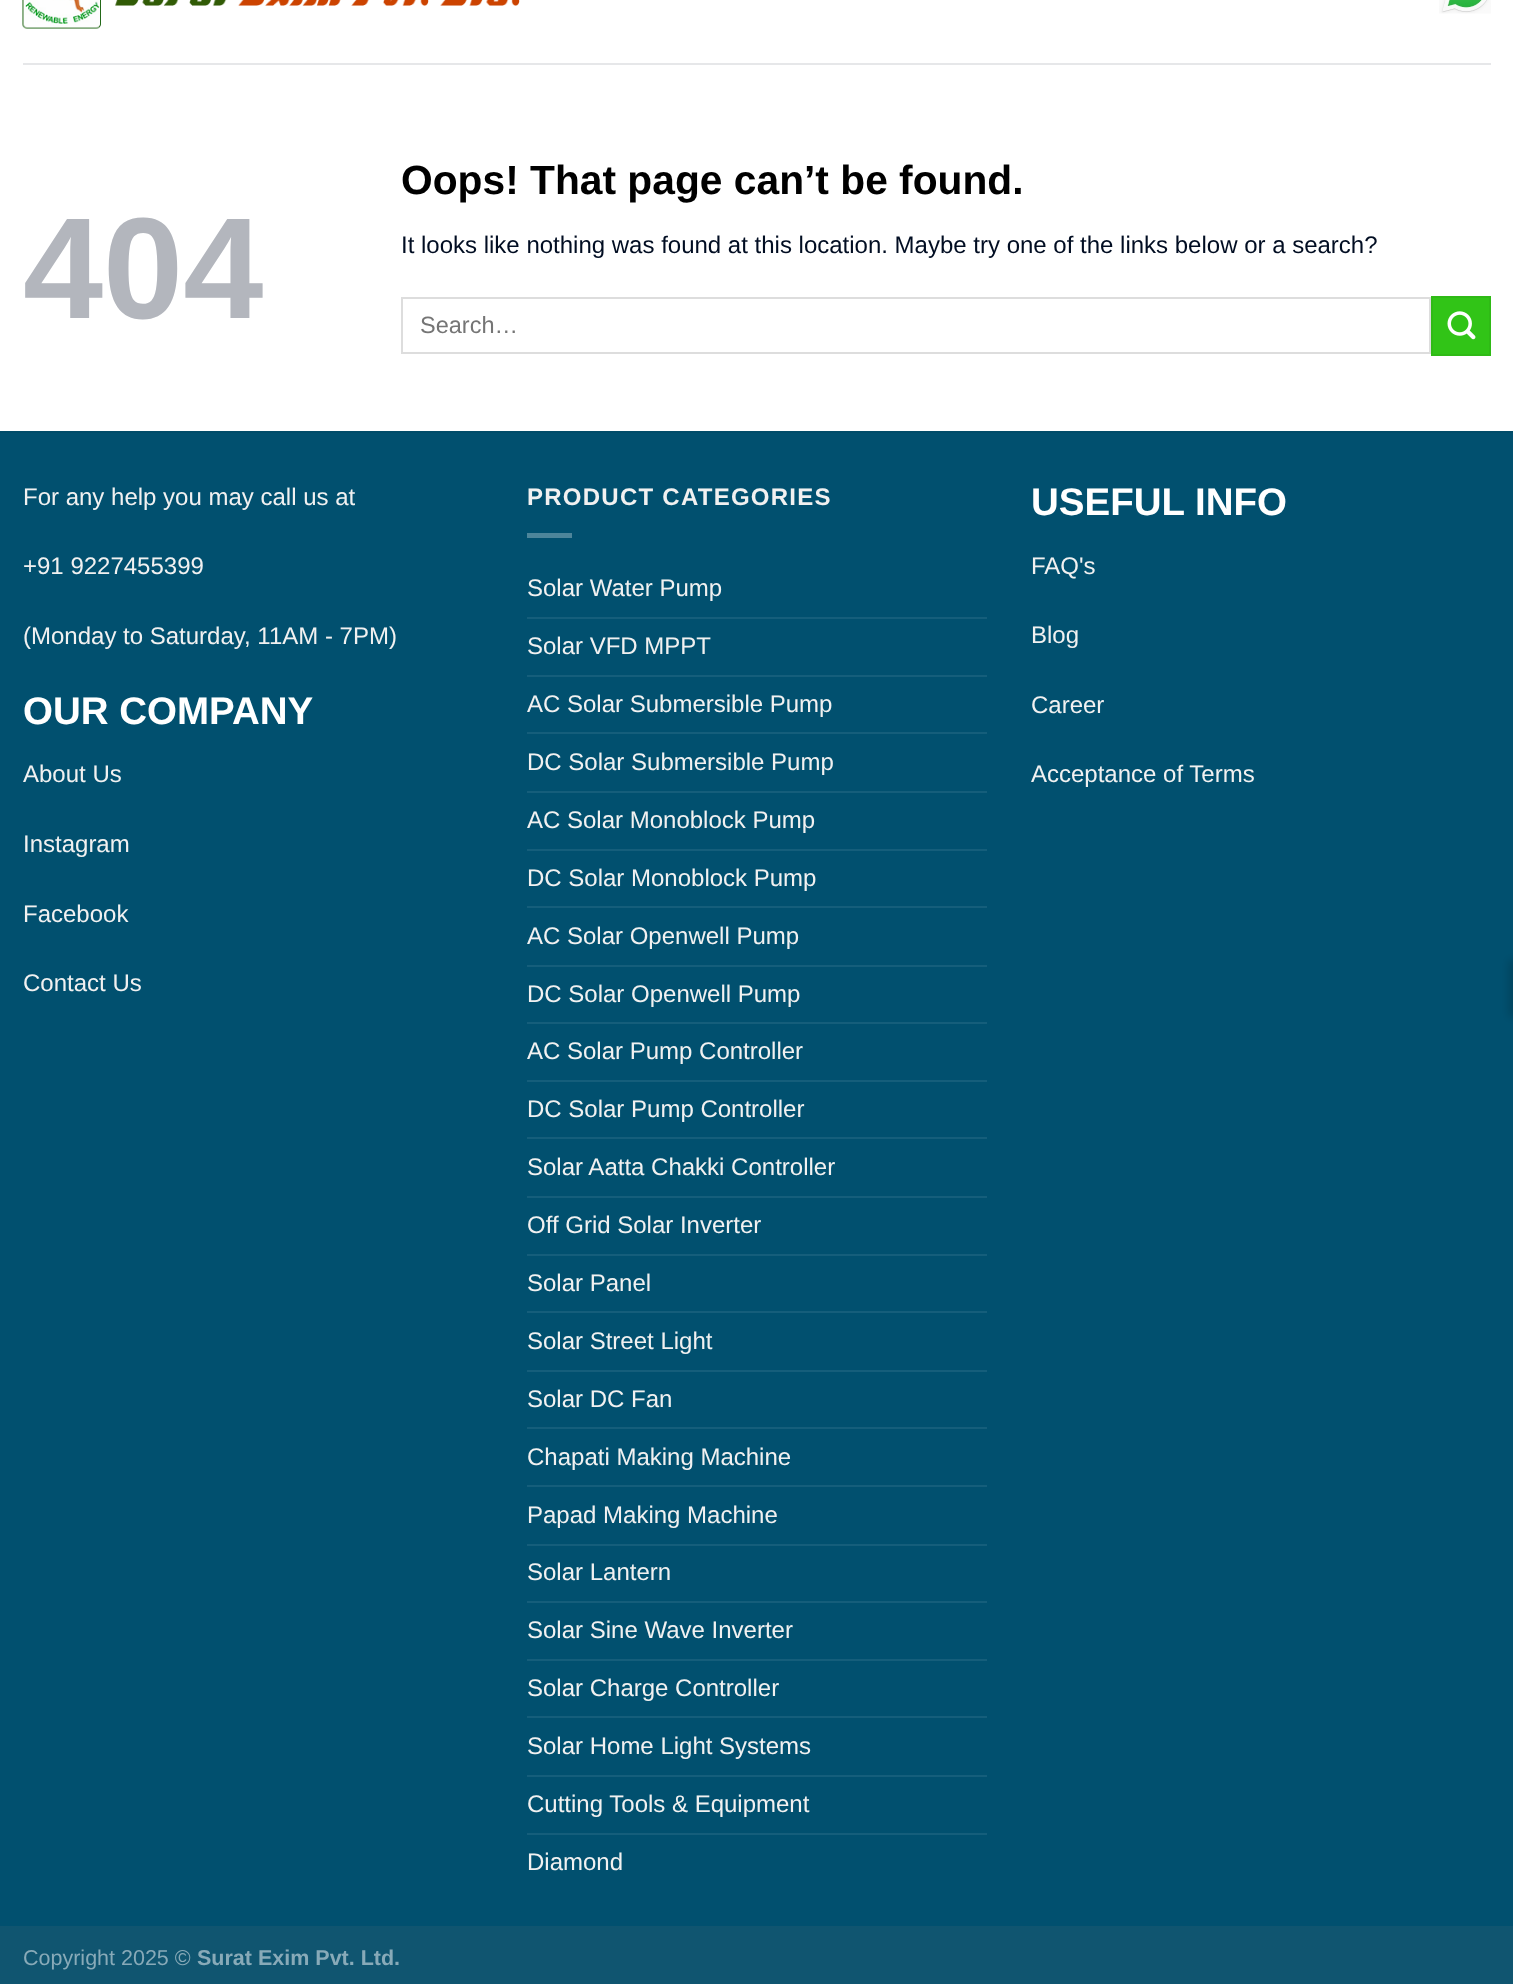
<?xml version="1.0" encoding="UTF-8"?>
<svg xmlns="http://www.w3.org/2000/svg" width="1513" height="1984">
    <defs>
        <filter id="blur1" x="-50%" y="-200%" width="200%" height="500%"><feGaussianBlur stdDeviation="4.5"/></filter>
    </defs>
    <rect width="100%" height="100%" fill="#FFFFFF"/>
    <image x="22" y="0" width="498" height="29" href="img_01.png"/>
    <image x="1439" y="0" width="52" height="14" href="img_02.png"/>
    <rect x="23" y="63" width="1468" height="2" fill="#E6E7E9"/>
    <text x="23" y="318" font-family="Liberation Sans" font-size="144" font-weight="700" fill="#B3B6BD">404</text>
    <text x="401" y="194" font-family="Liberation Sans" font-size="40.75" font-weight="700" fill="#000000">Oops! That page can’t be found.</text>
    <text x="401" y="253" font-family="Liberation Sans" font-size="24" fill="#010D22">It looks like nothing was found at this location. Maybe try one of the links below or a search?</text>
    <rect x="402" y="298" width="1028" height="55" fill="none" stroke="#DDDDDD" stroke-width="2"/>
    <text x="420" y="333" font-family="Liberation Sans" font-size="23.5" fill="#757575">Search…</text>
    <rect x="1432" y="297" width="58" height="58" fill="#31C417" stroke="#2FBA16" stroke-width="2"/>
    <image x="1447" y="311" width="29" height="29" href="img_03.png"/>
    <rect x="0" y="433" width="1513" height="1493" fill="#01506F"/>
    <rect x="0" y="431" width="1513" height="2" fill="#014C69"/>
    <text x="23" y="505" font-family="Liberation Sans" font-size="24" fill="#F1F1F1">For any help you may call us at</text>
    <text x="23" y="574" font-family="Liberation Sans" font-size="24" fill="#F1F1F1">+91 9227455399</text>
    <text x="23" y="644" font-family="Liberation Sans" font-size="24" fill="#F1F1F1">(Monday to Saturday, 11AM - 7PM)</text>
    <text x="23" y="724" font-family="Liberation Sans" font-size="38.5" font-weight="700" fill="#FFFFFF">OUR COMPANY</text>
    <text x="23" y="782" font-family="Liberation Sans" font-size="24" fill="#F1F1F1">About Us</text>
    <text x="23" y="852" font-family="Liberation Sans" font-size="24" fill="#F1F1F1">Instagram</text>
    <text x="23" y="922" font-family="Liberation Sans" font-size="24" fill="#F1F1F1">Facebook</text>
    <text x="23" y="991" font-family="Liberation Sans" font-size="24" fill="#F1F1F1">Contact Us</text>
    <text x="527" y="505" font-family="Liberation Sans" font-size="24" font-weight="700" letter-spacing="1.25" fill="#F1F1F1">PRODUCT CATEGORIES</text>
    <rect x="527" y="533" width="45" height="5" fill="#4D859A"/>
    <text x="527" y="596" font-family="Liberation Sans" font-size="24" fill="#F1F1F1">Solar Water Pump</text>
    <rect x="527" y="617" width="460" height="2" fill="#155E7B"/>
    <text x="527" y="654" font-family="Liberation Sans" font-size="24" fill="#F1F1F1">Solar VFD MPPT</text>
    <rect x="527" y="675" width="460" height="2" fill="#155E7B"/>
    <text x="527" y="712" font-family="Liberation Sans" font-size="24" fill="#F1F1F1">AC Solar Submersible Pump</text>
    <rect x="527" y="732" width="460" height="2" fill="#155E7B"/>
    <text x="527" y="770" font-family="Liberation Sans" font-size="24" fill="#F1F1F1">DC Solar Submersible Pump</text>
    <rect x="527" y="791" width="460" height="2" fill="#155E7B"/>
    <text x="527" y="828" font-family="Liberation Sans" font-size="24" fill="#F1F1F1">AC Solar Monoblock Pump</text>
    <rect x="527" y="849" width="460" height="2" fill="#155E7B"/>
    <text x="527" y="886" font-family="Liberation Sans" font-size="24" fill="#F1F1F1">DC Solar Monoblock Pump</text>
    <rect x="527" y="906" width="460" height="2" fill="#155E7B"/>
    <text x="527" y="944" font-family="Liberation Sans" font-size="24" fill="#F1F1F1">AC Solar Openwell Pump</text>
    <rect x="527" y="965" width="460" height="2" fill="#155E7B"/>
    <text x="527" y="1002" font-family="Liberation Sans" font-size="24" fill="#F1F1F1">DC Solar Openwell Pump</text>
    <rect x="527" y="1022" width="460" height="2" fill="#155E7B"/>
    <text x="527" y="1059" font-family="Liberation Sans" font-size="24" fill="#F1F1F1">AC Solar Pump Controller</text>
    <rect x="527" y="1080" width="460" height="2" fill="#155E7B"/>
    <text x="527" y="1117" font-family="Liberation Sans" font-size="24" fill="#F1F1F1">DC Solar Pump Controller</text>
    <rect x="527" y="1137" width="460" height="2" fill="#155E7B"/>
    <text x="527" y="1175" font-family="Liberation Sans" font-size="24" fill="#F1F1F1">Solar Aatta Chakki Controller</text>
    <rect x="527" y="1196" width="460" height="2" fill="#155E7B"/>
    <text x="527" y="1233" font-family="Liberation Sans" font-size="24" fill="#F1F1F1">Off Grid Solar Inverter</text>
    <rect x="527" y="1254" width="460" height="2" fill="#155E7B"/>
    <text x="527" y="1291" font-family="Liberation Sans" font-size="24" fill="#F1F1F1">Solar Panel</text>
    <rect x="527" y="1311" width="460" height="2" fill="#155E7B"/>
    <text x="527" y="1349" font-family="Liberation Sans" font-size="24" fill="#F1F1F1">Solar Street Light</text>
    <rect x="527" y="1370" width="460" height="2" fill="#155E7B"/>
    <text x="527" y="1407" font-family="Liberation Sans" font-size="24" fill="#F1F1F1">Solar DC Fan</text>
    <rect x="527" y="1427" width="460" height="2" fill="#155E7B"/>
    <text x="527" y="1465" font-family="Liberation Sans" font-size="24" fill="#F1F1F1">Chapati Making Machine</text>
    <rect x="527" y="1485" width="460" height="2" fill="#155E7B"/>
    <text x="527" y="1523" font-family="Liberation Sans" font-size="24" fill="#F1F1F1">Papad Making Machine</text>
    <rect x="527" y="1544" width="460" height="2" fill="#155E7B"/>
    <text x="527" y="1580" font-family="Liberation Sans" font-size="24" fill="#F1F1F1">Solar Lantern</text>
    <rect x="527" y="1601" width="460" height="2" fill="#155E7B"/>
    <text x="527" y="1638" font-family="Liberation Sans" font-size="24" fill="#F1F1F1">Solar Sine Wave Inverter</text>
    <rect x="527" y="1659" width="460" height="2" fill="#155E7B"/>
    <text x="527" y="1696" font-family="Liberation Sans" font-size="24" fill="#F1F1F1">Solar Charge Controller</text>
    <rect x="527" y="1716" width="460" height="2" fill="#155E7B"/>
    <text x="527" y="1754" font-family="Liberation Sans" font-size="24" fill="#F1F1F1">Solar Home Light Systems</text>
    <rect x="527" y="1775" width="460" height="2" fill="#155E7B"/>
    <text x="527" y="1812" font-family="Liberation Sans" font-size="24" fill="#F1F1F1">Cutting Tools &amp; Equipment</text>
    <rect x="527" y="1833" width="460" height="2" fill="#155E7B"/>
    <text x="527" y="1870" font-family="Liberation Sans" font-size="24" fill="#F1F1F1">Diamond</text>
    <text x="1031" y="515" font-family="Liberation Sans" font-size="38.5" font-weight="700" fill="#FFFFFF">USEFUL INFO</text>
    <text x="1031" y="574" font-family="Liberation Sans" font-size="24" fill="#F1F1F1">FAQ's</text>
    <text x="1031" y="643" font-family="Liberation Sans" font-size="24" fill="#F1F1F1">Blog</text>
    <text x="1031" y="713" font-family="Liberation Sans" font-size="24" fill="#F1F1F1">Career</text>
    <text x="1031" y="782" font-family="Liberation Sans" font-size="24" fill="#F1F1F1">Acceptance of Terms</text>
    <rect x="0" y="1926" width="1513" height="58" fill="#105570"/>
    <text x="23" y="1965" font-family="Liberation Sans" font-size="21.5" fill="#88AAB8">Copyright 2025 ©</text>
    <text x="197" y="1965" font-family="Liberation Sans" font-size="21.5" font-weight="700" fill="#88AAB8">Surat Exim Pvt. Ltd.</text>
    <rect x="1509" y="960" width="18" height="57" fill="#000000" fill-opacity="0.16" filter="url(#blur1)"/>
</svg>
